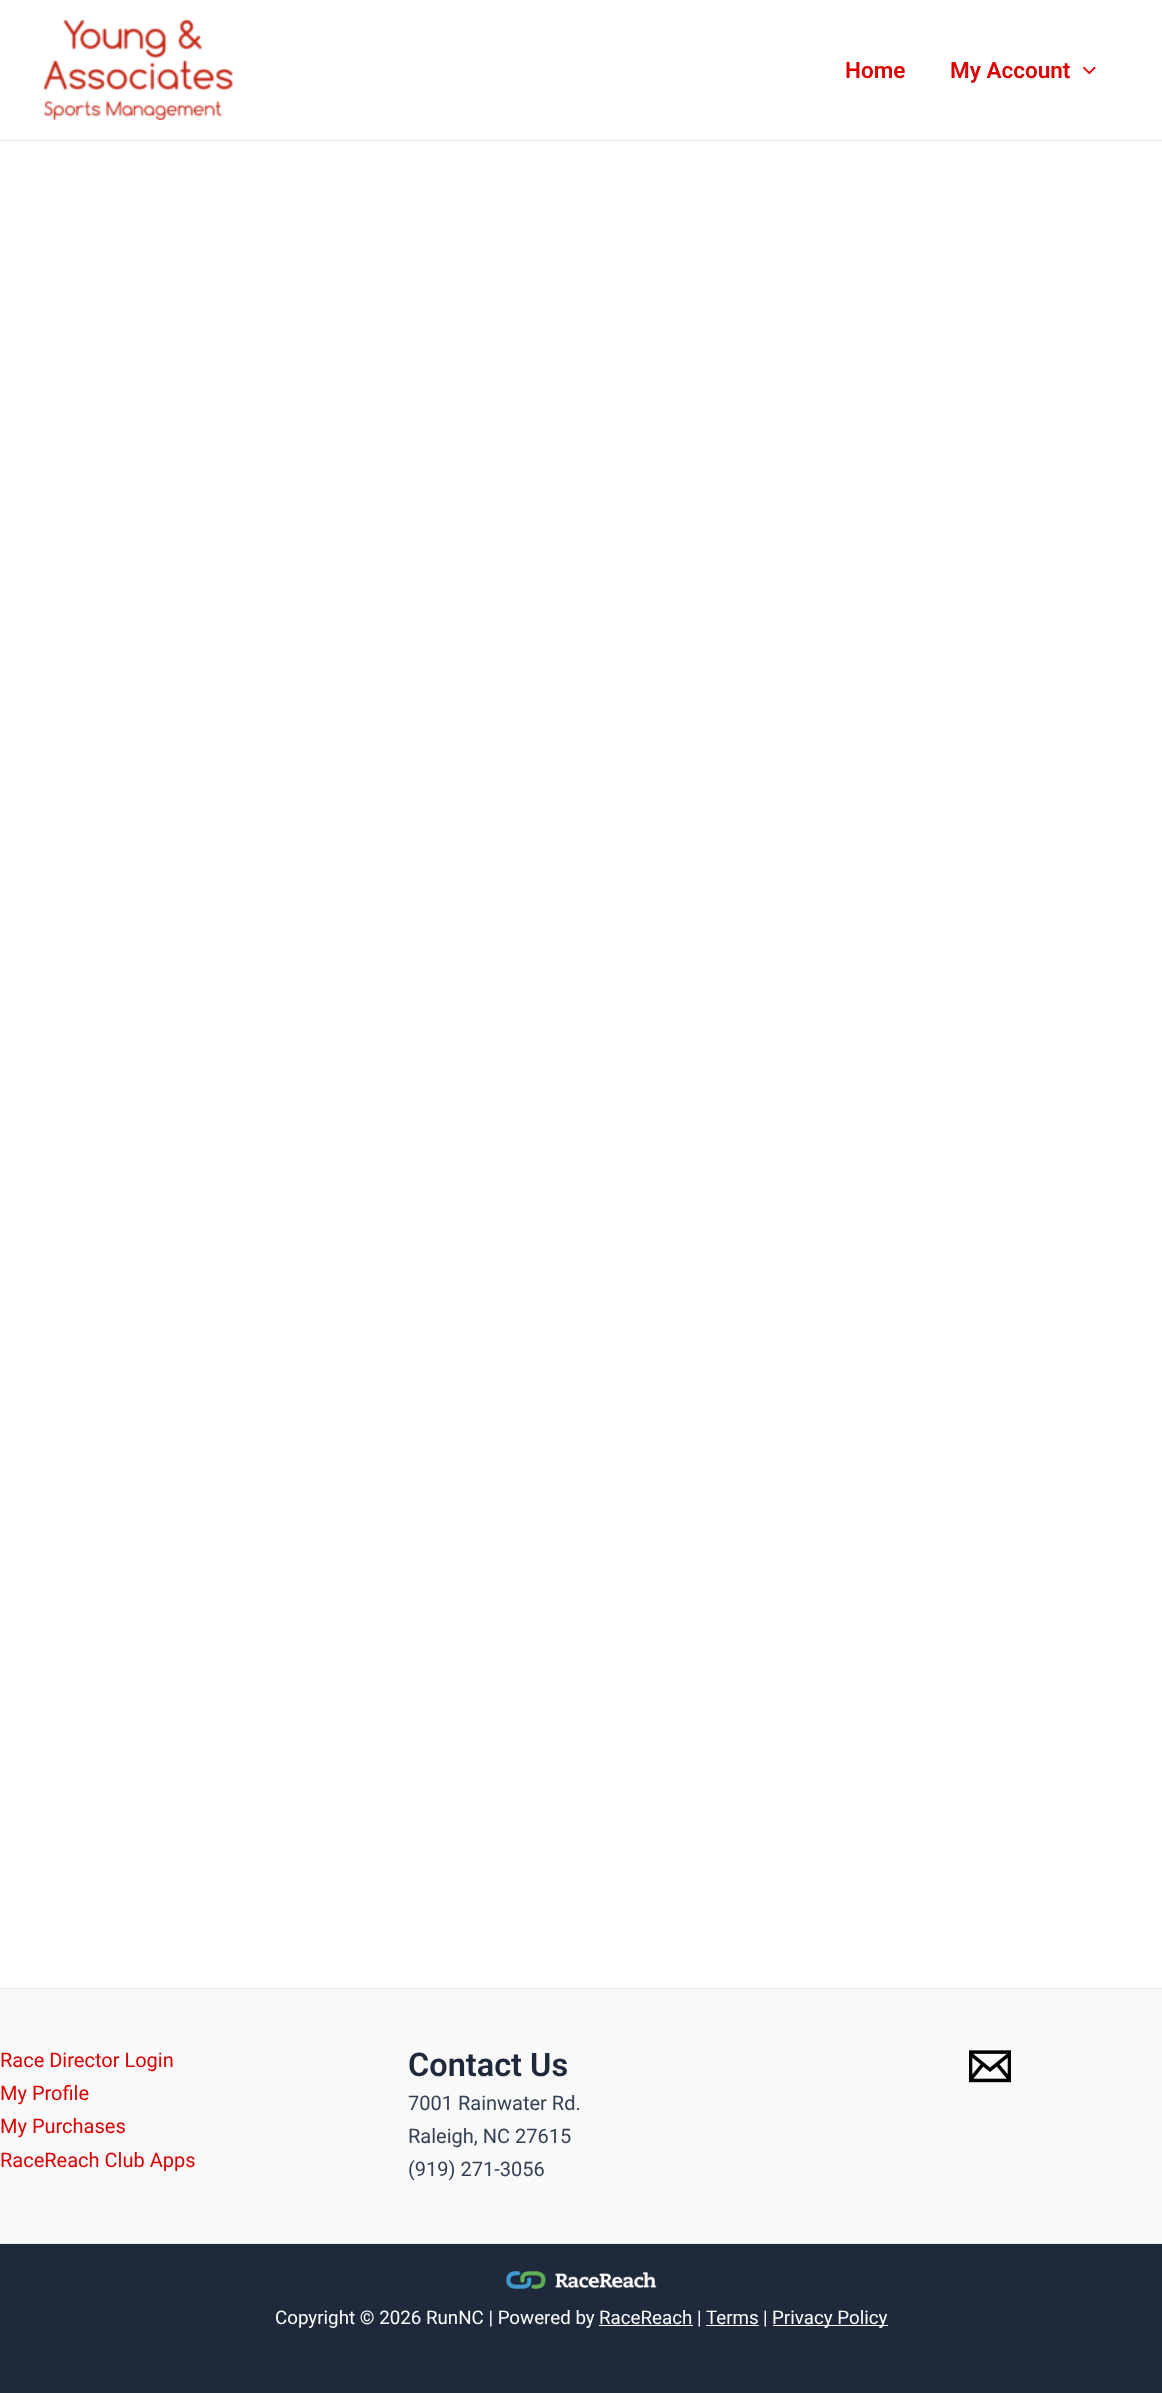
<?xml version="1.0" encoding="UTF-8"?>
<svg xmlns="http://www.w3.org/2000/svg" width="1162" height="2393">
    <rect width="100%" height="100%" fill="#FFFFFF"/>
    <rect x="0" y="140" width="1162" height="1" fill="#E2E8F0"/>
    <image x="43" y="20" width="190" height="100" href="img_01.png"/>
    <text x="845" y="78" font-family="Roboto" font-size="22.5" font-weight="600" fill="#DD0000">Home</text>
    <text x="950" y="78" font-family="Roboto" font-size="22.5" font-weight="600" fill="#DD0000">My Account</text>
    <image x="1083" y="66" width="13" height="9" href="img_02.png"/>
    <rect x="0" y="1989" width="1162" height="254" fill="#F9F9F9"/>
    <rect x="0" y="1988" width="1162" height="1" fill="#E2E8F0"/>
    <text font-family="Roboto" font-size="20" fill="#DD0000">
        <tspan x="0" y="2067">Race Director Login</tspan>
        <tspan x="0" y="2100">My Profile</tspan>
        <tspan x="0" y="2133">My Purchases</tspan>
        <tspan x="0" y="2167">RaceReach Club Apps</tspan>
    </text>
    <text x="408" y="2076" font-family="Roboto" font-size="32.5" font-weight="600" fill="#1E293B">Contact Us</text>
    <text font-family="Roboto" font-size="20" fill="#334155">
        <tspan x="408" y="2110">7001 Rainwater Rd.</tspan>
        <tspan x="408" y="2143">Raleigh, NC 27615</tspan>
        <tspan x="408" y="2176">(919) 271-3056</tspan>
    </text>
    <image x="969" y="2050" width="42" height="33" href="img_03.png"/>
    <rect x="0" y="2244" width="1162" height="149" fill="#1E293B"/>
    <rect x="0" y="2243" width="1162" height="1" fill="#E2E8F0"/>
    <image x="506" y="2271" width="151" height="18" href="img_04.png"/>
    <text x="275" y="2324" font-family="Roboto" font-size="18.75" fill="#FEFEFE">Copyright © 2026 RunNC | Powered by</text>
    <text x="599" y="2324" font-family="Roboto" font-size="18.75" fill="#FEFEFE">RaceReach</text>
    <rect x="599" y="2325" width="94" height="1" fill="#FFFFFF"/>
    <text x="697" y="2324" font-family="Roboto" font-size="18.75" fill="#FEFEFE">|</text>
    <text x="706" y="2324" font-family="Roboto" font-size="18.75" fill="#FEFEFE">Terms</text>
    <rect x="706" y="2325" width="53" height="1" fill="#FFFFFF"/>
    <text x="763" y="2324" font-family="Roboto" font-size="18.75" fill="#FEFEFE">|</text>
    <rect x="773" y="2325" width="115" height="1" fill="#FFFFFF"/>
    <text x="772" y="2324" font-family="Roboto" font-size="18.75" fill="#FEFEFE">Privacy Policy</text>
</svg>
